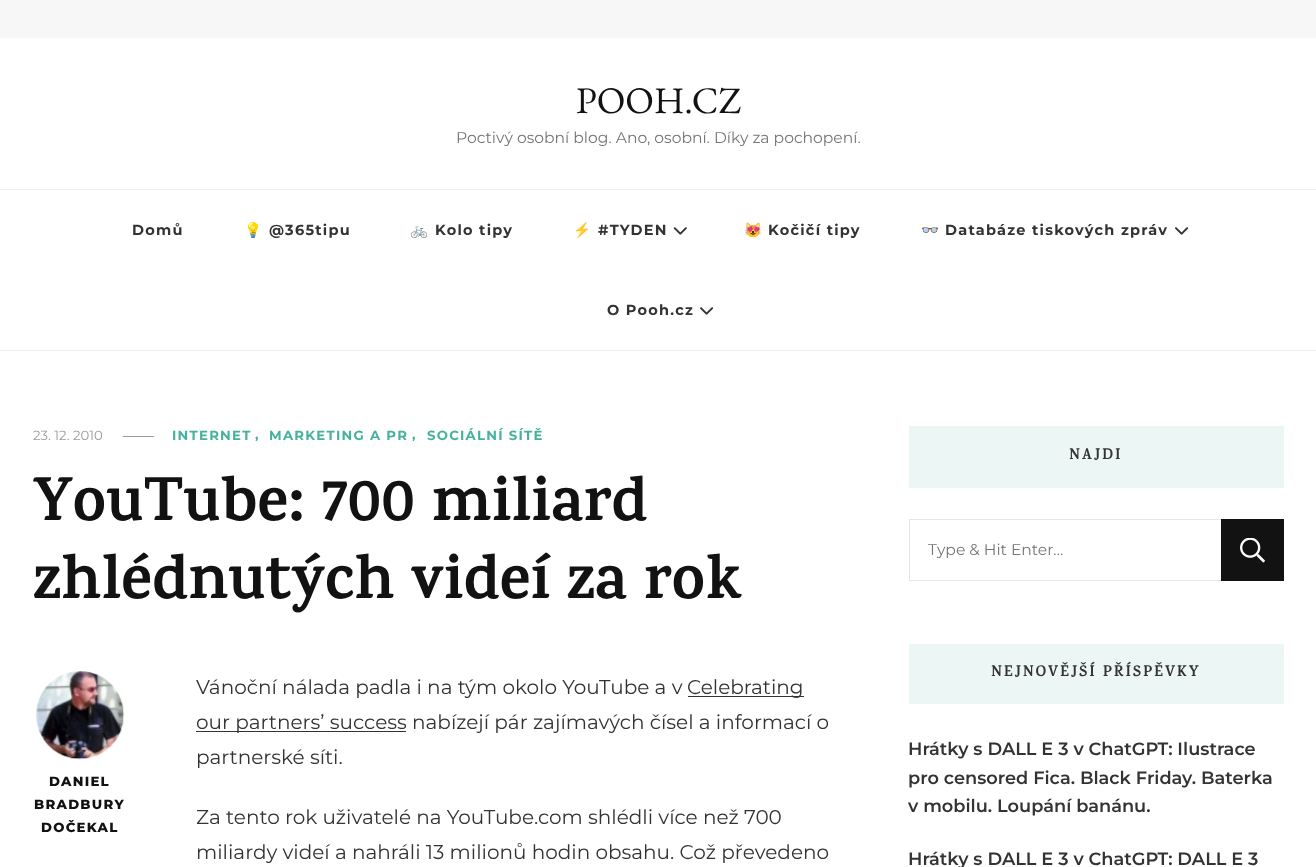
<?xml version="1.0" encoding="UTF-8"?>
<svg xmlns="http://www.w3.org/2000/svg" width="1316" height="867">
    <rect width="100%" height="100%" fill="#FFFFFF"/>
    <rect x="0" y="0" width="1316" height="38" fill="#F7F7F7"/>
    <text x="576" y="113" font-family="EB Garamond" font-size="37.5" fill="#121212">POOH.CZ</text>
    <text x="456" y="143" font-family="Montserrat" font-size="15.55" fill="#757575">Poctivý osobní blog. Ano, osobní. Díky za pochopení.</text>
    <rect x="0" y="189" width="1316" height="1" fill="#EDEDED"/>
    <rect x="0" y="350" width="1316" height="1" fill="#EDEDED"/>
    <text x="132" y="235" font-family="Montserrat" font-size="14.5" font-weight="700" letter-spacing="1.25" fill="#333333">Domů</text>
    <text x="244" y="235" font-family="Noto Color Emoji" font-size="14.5" font-weight="700" letter-spacing="1.25" fill="#333333">💡</text>
    <text x="269" y="235" font-family="Montserrat" font-size="14.5" font-weight="700" letter-spacing="1.25" fill="#333333">@365tipu</text>
    <text x="410" y="235" font-family="Noto Color Emoji" font-size="14.5" font-weight="700" letter-spacing="1.25" fill="#333333">🚲</text>
    <text x="435" y="235" font-family="Montserrat" font-size="14.5" font-weight="700" letter-spacing="1.25" fill="#333333">Kolo tipy</text>
    <text x="573" y="235" font-family="Noto Color Emoji" font-size="14.5" font-weight="700" letter-spacing="1.25" fill="#333333">⚡</text>
    <text x="598" y="235" font-family="Montserrat" font-size="14.5" font-weight="700" letter-spacing="1.25" fill="#333333">#TYDEN</text>
    <image x="673" y="227" width="14" height="8" href="img_01.png"/>
    <text x="744" y="235" font-family="Noto Color Emoji" font-size="14.5" font-weight="700" letter-spacing="1.25" fill="#333333">😻</text>
    <text x="768" y="235" font-family="Montserrat" font-size="14.5" font-weight="700" letter-spacing="1.25" fill="#333333">Kočičí tipy</text>
    <text x="921" y="235" font-family="Noto Color Emoji" font-size="14.5" font-weight="700" letter-spacing="1.25" fill="#333333">👓</text>
    <text x="945" y="235" font-family="Montserrat" font-size="14.5" font-weight="700" letter-spacing="1.25" fill="#333333">Databáze tiskových zpráv</text>
    <image x="1175" y="227" width="14" height="8" href="img_02.png"/>
    <text x="607" y="315" font-family="Montserrat" font-size="14.5" font-weight="700" letter-spacing="1.25" fill="#333333">O Pooh.cz</text>
    <image x="700" y="307" width="14" height="8" href="img_02.png"/>
    <text x="33" y="440" font-family="Montserrat" font-size="13.25" fill="#999999">23. 12. 2010</text>
    <rect x="123" y="436" width="31" height="1" fill="#999999"/>
    <text x="172" y="440" font-family="Montserrat" font-size="13.25" font-weight="700" letter-spacing="1.25" fill="#45B29D">INTERNET</text>
    <text x="255" y="439" font-family="Montserrat" font-size="13.25" font-weight="700" letter-spacing="1.25" fill="#45B29D">,</text>
    <text x="269" y="440" font-family="Montserrat" font-size="13.25" font-weight="700" letter-spacing="1.25" fill="#45B29D">MARKETING A PR</text>
    <text x="412" y="439" font-family="Montserrat" font-size="13.25" font-weight="700" letter-spacing="1.25" fill="#45B29D">,</text>
    <text x="427" y="440" font-family="Montserrat" font-size="13.25" font-weight="700" letter-spacing="1.25" fill="#45B29D">SOCIÁLNÍ SÍTĚ</text>
    <text font-family="Karma" font-size="62.25" font-weight="700" fill="#121212">
        <tspan x="33" y="520">YouTube: 700 miliard</tspan>
        <tspan x="33" y="598">zhlédnutých videí za rok</tspan>
    </text>
    <image x="36" y="671" width="89" height="89" href="img_03.png"/>
    <text x="49" y="786" font-family="Montserrat" font-size="13.25" font-weight="800" letter-spacing="1.25" fill="#121212">DANIEL</text>
    <text x="34" y="809" font-family="Montserrat" font-size="13.25" font-weight="800" letter-spacing="1.25" fill="#121212">BRADBURY</text>
    <text x="41" y="832" font-family="Montserrat" font-size="13.25" font-weight="800" letter-spacing="1.25" fill="#121212">DOČEKAL</text>
    <text x="196" y="694" font-family="Montserrat" font-size="20" fill="#333333">Vánoční nálada padla i na tým okolo YouTube a v</text>
    <rect x="688" y="696" width="116" height="1" fill="#333333"/>
    <text x="687" y="694" font-family="Montserrat" font-size="20" fill="#333333">Celebrating</text>
    <rect x="196" y="731" width="210" height="1" fill="#333333"/>
    <text font-family="Montserrat" font-size="20" fill="#333333">
        <tspan x="196" y="729">our partners’ success nabízejí pár zajímavých čísel a informací o</tspan>
        <tspan x="196" y="764">partnerské síti.</tspan>
    </text>
    <text font-family="Montserrat" font-size="20" fill="#333333">
        <tspan x="196" y="824">Za tento rok uživatelé na YouTube.com shlédli více než 700</tspan>
        <tspan x="196" y="859">miliardy videí a nahráli 13 milionů hodin obsahu. Což převedeno</tspan>
    </text>
    <rect x="909" y="426" width="375" height="62" fill="#ECF7F5"/>
    <text x="1069" y="459" font-family="Karma" font-size="15.55" font-weight="700" letter-spacing="1.9" fill="#333333">NAJDI</text>
    <path d="M 909 519 H 1221 V 520 H 910 Z" fill="#E6E6E6"/>
    <path d="M 1221 581 H 909 L 910 580 H 1221 Z" fill="#E6E6E6"/>
    <path d="M 909 581 V 519 L 910 520 V 580 Z" fill="#000000" fill-opacity="0.1"/>
    <text x="928" y="555" font-family="Montserrat" font-size="15.55" fill="#757575">Type &amp; Hit Enter…</text>
    <rect x="1221" y="519" width="63" height="62" fill="#121212"/>
    <image x="1240" y="538" width="25" height="25" href="img_04.png"/>
    <rect x="909" y="644" width="375" height="60" fill="#ECF7F5"/>
    <text x="991" y="676" font-family="Karma" font-size="15.55" font-weight="700" letter-spacing="1.9" fill="#333333">NEJNOVĚJŠÍ PŘÍSPĚVKY</text>
    <text font-family="Montserrat" font-size="17.75" font-weight="600" fill="#333333">
        <tspan x="908" y="755">Hrátky s DALL E 3 v ChatGPT: Ilustrace</tspan>
        <tspan x="908" y="784">pro censored Fica. Black Friday. Baterka</tspan>
        <tspan x="908" y="812">v mobilu. Loupání banánu.</tspan>
    </text>
    <text x="908" y="865" font-family="Montserrat" font-size="17.75" font-weight="600" fill="#333333">Hrátky s DALL E 3 v ChatGPT: DALL E 3</text>
</svg>
